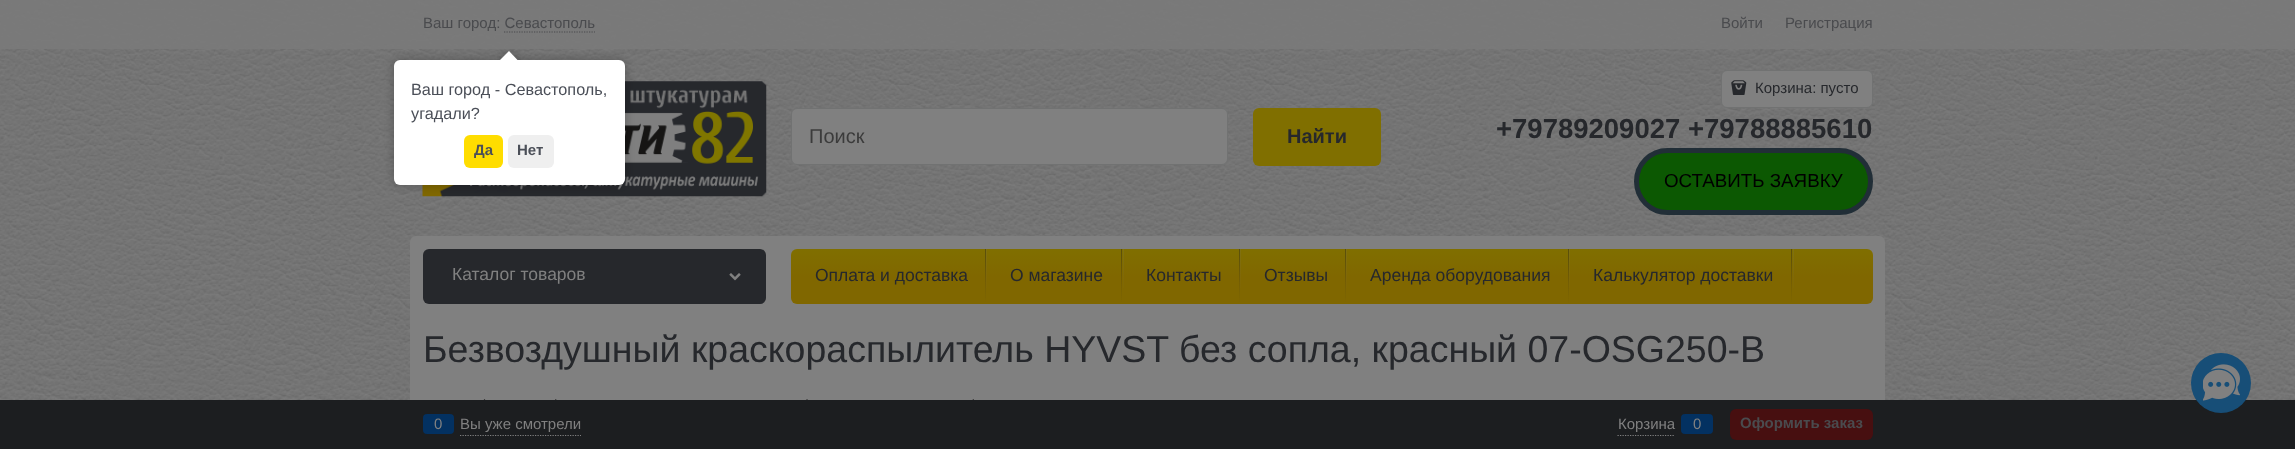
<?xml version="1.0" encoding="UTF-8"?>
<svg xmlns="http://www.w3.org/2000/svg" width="2295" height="449">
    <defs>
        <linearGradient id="g1" gradientUnits="userSpaceOnUse" x1="1332" y1="249" x2="1332" y2="304"><stop offset="0" stop-color="#806F00"/><stop offset="0.5" stop-color="#806700"/></linearGradient>
        <linearGradient id="g2" gradientUnits="userSpaceOnUse" x1="987" y1="249" x2="987" y2="304"><stop offset="0" stop-color="#808080" stop-opacity="0.14"/><stop offset="0.72" stop-color="#808080" stop-opacity="0.02"/><stop offset="1" stop-color="#808080" stop-opacity="0"/></linearGradient>
        <linearGradient id="g3" gradientUnits="userSpaceOnUse" x1="986" y1="249" x2="986" y2="304"><stop offset="0" stop-color="#1D1D1D" stop-opacity="0.39"/><stop offset="0.17" stop-color="#1D1D1D" stop-opacity="0.33"/><stop offset="0.61" stop-color="#1D1D1D" stop-opacity="0.12"/><stop offset="0.96" stop-color="#1D1D1D" stop-opacity="0.01"/><stop offset="0.98" stop-color="#808080" stop-opacity="0.01"/><stop offset="1" stop-color="#808080" stop-opacity="0"/></linearGradient>
        <linearGradient id="g4" gradientUnits="userSpaceOnUse" x1="1123" y1="249" x2="1123" y2="304"><stop offset="0" stop-color="#808080" stop-opacity="0.14"/><stop offset="0.72" stop-color="#808080" stop-opacity="0.02"/><stop offset="1" stop-color="#808080" stop-opacity="0"/></linearGradient>
        <linearGradient id="g5" gradientUnits="userSpaceOnUse" x1="1122" y1="249" x2="1122" y2="304"><stop offset="0" stop-color="#1D1D1D" stop-opacity="0.39"/><stop offset="0.17" stop-color="#1D1D1D" stop-opacity="0.33"/><stop offset="0.61" stop-color="#1D1D1D" stop-opacity="0.12"/><stop offset="0.96" stop-color="#1D1D1D" stop-opacity="0.01"/><stop offset="0.98" stop-color="#808080" stop-opacity="0.01"/><stop offset="1" stop-color="#808080" stop-opacity="0"/></linearGradient>
        <linearGradient id="g6" gradientUnits="userSpaceOnUse" x1="1241" y1="249" x2="1241" y2="304"><stop offset="0" stop-color="#808080" stop-opacity="0.14"/><stop offset="0.72" stop-color="#808080" stop-opacity="0.02"/><stop offset="1" stop-color="#808080" stop-opacity="0"/></linearGradient>
        <linearGradient id="g7" gradientUnits="userSpaceOnUse" x1="1239" y1="249" x2="1239" y2="304"><stop offset="0" stop-color="#1D1D1D" stop-opacity="0.39"/><stop offset="0.17" stop-color="#1D1D1D" stop-opacity="0.33"/><stop offset="0.61" stop-color="#1D1D1D" stop-opacity="0.12"/><stop offset="0.96" stop-color="#1D1D1D" stop-opacity="0.01"/><stop offset="0.98" stop-color="#808080" stop-opacity="0.01"/><stop offset="1" stop-color="#808080" stop-opacity="0"/></linearGradient>
        <linearGradient id="g8" gradientUnits="userSpaceOnUse" x1="1347" y1="249" x2="1347" y2="304"><stop offset="0" stop-color="#808080" stop-opacity="0.14"/><stop offset="0.72" stop-color="#808080" stop-opacity="0.02"/><stop offset="1" stop-color="#808080" stop-opacity="0"/></linearGradient>
        <linearGradient id="g9" gradientUnits="userSpaceOnUse" x1="1346" y1="249" x2="1346" y2="304"><stop offset="0" stop-color="#1D1D1D" stop-opacity="0.39"/><stop offset="0.17" stop-color="#1D1D1D" stop-opacity="0.33"/><stop offset="0.61" stop-color="#1D1D1D" stop-opacity="0.12"/><stop offset="0.96" stop-color="#1D1D1D" stop-opacity="0.01"/><stop offset="0.98" stop-color="#808080" stop-opacity="0.01"/><stop offset="1" stop-color="#808080" stop-opacity="0"/></linearGradient>
        <linearGradient id="g10" gradientUnits="userSpaceOnUse" x1="1569" y1="249" x2="1569" y2="304"><stop offset="0" stop-color="#808080" stop-opacity="0.14"/><stop offset="0.72" stop-color="#808080" stop-opacity="0.02"/><stop offset="1" stop-color="#808080" stop-opacity="0"/></linearGradient>
        <linearGradient id="g11" gradientUnits="userSpaceOnUse" x1="1568" y1="249" x2="1568" y2="304"><stop offset="0" stop-color="#1D1D1D" stop-opacity="0.39"/><stop offset="0.17" stop-color="#1D1D1D" stop-opacity="0.33"/><stop offset="0.61" stop-color="#1D1D1D" stop-opacity="0.12"/><stop offset="0.96" stop-color="#1D1D1D" stop-opacity="0.01"/><stop offset="0.98" stop-color="#808080" stop-opacity="0.01"/><stop offset="1" stop-color="#808080" stop-opacity="0"/></linearGradient>
        <linearGradient id="g12" gradientUnits="userSpaceOnUse" x1="1793" y1="249" x2="1793" y2="304"><stop offset="0" stop-color="#808080" stop-opacity="0.14"/><stop offset="0.72" stop-color="#808080" stop-opacity="0.02"/><stop offset="1" stop-color="#808080" stop-opacity="0"/></linearGradient>
        <linearGradient id="g13" gradientUnits="userSpaceOnUse" x1="1792" y1="249" x2="1792" y2="304"><stop offset="0" stop-color="#1D1D1D" stop-opacity="0.39"/><stop offset="0.17" stop-color="#1D1D1D" stop-opacity="0.33"/><stop offset="0.61" stop-color="#1D1D1D" stop-opacity="0.12"/><stop offset="0.96" stop-color="#1D1D1D" stop-opacity="0.01"/><stop offset="0.98" stop-color="#808080" stop-opacity="0.01"/><stop offset="1" stop-color="#808080" stop-opacity="0"/></linearGradient>
        <filter id="blur1" x="-50%" y="-200%" width="200%" height="500%"><feGaussianBlur stdDeviation="5.5"/></filter>
        <clipPath id="clip1"><rect x="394" y="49" width="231" height="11"/></clipPath>
        <clipPath id="clip2"><rect x="394" y="49" width="231" height="11"/></clipPath>
    </defs>
    <rect width="100%" height="100%" fill="#FFFFFF"/>
    <image x="0" y="0" width="2295" height="400" href="img_01.png"/>
    <rect x="0" y="0" width="2295" height="49" fill="#7A7A7A" fill-opacity="0.9"/>
    <text x="423" y="28" font-family="Liberation Sans" font-size="15" fill="#4A4B4E">Ваш город: Севастополь</text>
    <path d="M 504 32 H 595" fill="none" stroke="#4A4B4E" stroke-width="1.2" stroke-dasharray="1.25 1.25"/>
    <text x="1721" y="28" font-family="Liberation Sans" font-size="15" fill="#4A4B4E">Войти</text>
    <text x="1785" y="28" font-family="Liberation Sans" font-size="15" fill="#4A4B4E">Регистрация</text>
    <image x="422" y="81" width="345" height="116" href="img_02.png"/>
    <rect x="791.5" y="108.5" width="436" height="56" rx="5.5" fill="#808080" stroke="#717272"/>
    <text x="809" y="143" font-family="Liberation Sans" font-size="20" fill="#3B3B3B">Поиск</text>
    <rect x="1253" y="108" width="128" height="58" rx="6" fill="#806F00"/>
    <text x="1287" y="143" font-family="Liberation Sans" font-size="20" font-weight="700" fill="#26282C">Найти</text>
    <rect x="1721.5" y="70.5" width="151" height="37" rx="5.5" fill="#808080" stroke="#717272"/>
    <image x="1731" y="80" width="16" height="15" href="img_03.png"/>
    <text x="1755" y="93" font-family="Liberation Sans" font-size="15" fill="#26282C">Корзина: пусто</text>
    <text x="1496" y="138" font-family="Liberation Sans" font-size="27.5" font-weight="700" fill="#26282C">+79789209027 +79788885610</text>
    <rect x="1636.5" y="150.5" width="234" height="62" rx="31" fill="#0C5802" stroke="#212E37" stroke-width="5"/>
    <text x="1664" y="187" font-family="Liberation Sans" font-size="18.75" fill="#000000">ОСТАВИТЬ ЗАЯВКУ</text>
    <rect x="410" y="236" width="1475" height="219" rx="6" fill="#808080"/>
    <rect x="423" y="249" width="343" height="55" rx="6" fill="#26282C"/>
    <text x="452" y="280" font-family="Liberation Sans" font-size="17.5" fill="#808080">Каталог товаров</text>
    <image x="729" y="273" width="12" height="8" href="img_04.png"/>
    <rect x="791" y="249" width="1082" height="55" rx="6" fill="url(#g1)"/>
    <text x="815" y="281" font-family="Liberation Sans" font-size="17.5" fill="#26282C">Оплата и доставка</text>
    <rect x="986" y="249" width="1" height="39" fill="url(#g2)"/>
    <rect x="985" y="249" width="1" height="55" fill="url(#g3)"/>
    <text x="1010" y="281" font-family="Liberation Sans" font-size="17.5" fill="#26282C">О магазине</text>
    <rect x="1123" y="249" width="1" height="39" fill="url(#g4)"/>
    <rect x="1121" y="249" width="1" height="55" fill="url(#g5)"/>
    <text x="1146" y="281" font-family="Liberation Sans" font-size="17.5" fill="#26282C">Контакты</text>
    <rect x="1240" y="249" width="1" height="39" fill="url(#g6)"/>
    <rect x="1239" y="249" width="1" height="55" fill="url(#g7)"/>
    <text x="1264" y="281" font-family="Liberation Sans" font-size="17.5" fill="#26282C">Отзывы</text>
    <rect x="1346" y="249" width="1" height="39" fill="url(#g8)"/>
    <rect x="1345" y="249" width="1" height="55" fill="url(#g9)"/>
    <text x="1370" y="281" font-family="Liberation Sans" font-size="17.5" fill="#26282C">Аренда оборудования</text>
    <rect x="1569" y="249" width="1" height="39" fill="url(#g10)"/>
    <rect x="1568" y="249" width="1" height="55" fill="url(#g11)"/>
    <text x="1593" y="281" font-family="Liberation Sans" font-size="17.5" fill="#26282C">Калькулятор доставки</text>
    <rect x="1793" y="249" width="1" height="39" fill="url(#g12)"/>
    <rect x="1791" y="249" width="1" height="55" fill="url(#g13)"/>
    <text x="423" y="362" font-family="Liberation Sans" font-size="37.5" fill="#26282C">Безвоздушный краскораспылитель HYVST без сопла, красный 07-OSG250-B</text>
    <image x="483" y="399" width="3" height="1" href="img_05.png"/>
    <image x="555" y="399" width="2" height="1" href="img_06.png"/>
    <image x="806" y="399" width="2" height="1" href="img_07.png"/>
    <image x="972" y="399" width="2" height="1" href="img_08.png"/>
    <rect x="0" y="400" width="2295" height="49" fill="#1C1E20"/>
    <path d="M 460 435.5 H 581" fill="none" stroke="#808080" stroke-width="1.2" stroke-dasharray="1.25 1.25"/>
    <rect x="423" y="414" width="31" height="20" rx="4" fill="#033161"/>
    <text x="434" y="429" font-family="Liberation Sans" font-size="15" fill="#808080">0</text>
    <text x="460" y="429" font-family="Liberation Sans" font-size="15" fill="#808080">Вы уже смотрели</text>
    <path d="M 1617.5 435.5 H 1675" fill="none" stroke="#808080" stroke-width="1.2" stroke-dasharray="1.25 1.25"/>
    <text x="1618" y="429" font-family="Liberation Sans" font-size="15" fill="#808080">Корзина</text>
    <rect x="1681" y="414" width="32" height="20" rx="4" fill="#033161"/>
    <text x="1693" y="429" font-family="Liberation Sans" font-size="15" fill="#808080">0</text>
    <rect x="1730" y="409" width="143" height="31" rx="6" fill="#470F10"/>
    <text x="1740" y="428" font-family="Liberation Sans" font-size="15" font-weight="700" fill="#4A4B4E">Оформить заказ</text>
    <rect x="394" y="60" width="231" height="125" rx="6" fill="#000000" fill-opacity="0.25" filter="url(#blur1)"/>
    <rect x="394" y="60" width="231" height="125" rx="6" fill="#FFFFFF"/>
    <g clip-path="url(#clip1)">
        <rect x="503" y="54" width="12" height="12" fill="#000000" fill-opacity="0.25" filter="url(#blur1)"/>
    </g>
    <g clip-path="url(#clip2)">
        <path d="M 509 51 L 517.5 60 L 509 69 L 500 60 Z" fill="#FFFFFF"/>
    </g>
    <text font-family="Liberation Sans" font-size="16.25" fill="#4B4F58">
        <tspan x="411" y="95">Ваш город - Севастополь,</tspan>
        <tspan x="411" y="119">угадали?</tspan>
    </text>
    <rect x="464" y="135" width="39" height="33" rx="6" fill="#FFDD00"/>
    <text x="474" y="155" font-family="Liberation Sans" font-size="15" font-weight="700" fill="#4B4F58">Да</text>
    <rect x="508" y="135" width="46" height="33" rx="6" fill="#EFEFEF"/>
    <text x="517" y="155" font-family="Liberation Sans" font-size="15" font-weight="700" fill="#4B4F58">Нет</text>
    <circle cx="2221" cy="383" r="30" fill="#174E77"/>
    <image x="2203" y="364" width="37" height="37" href="img_09.png"/>
</svg>
